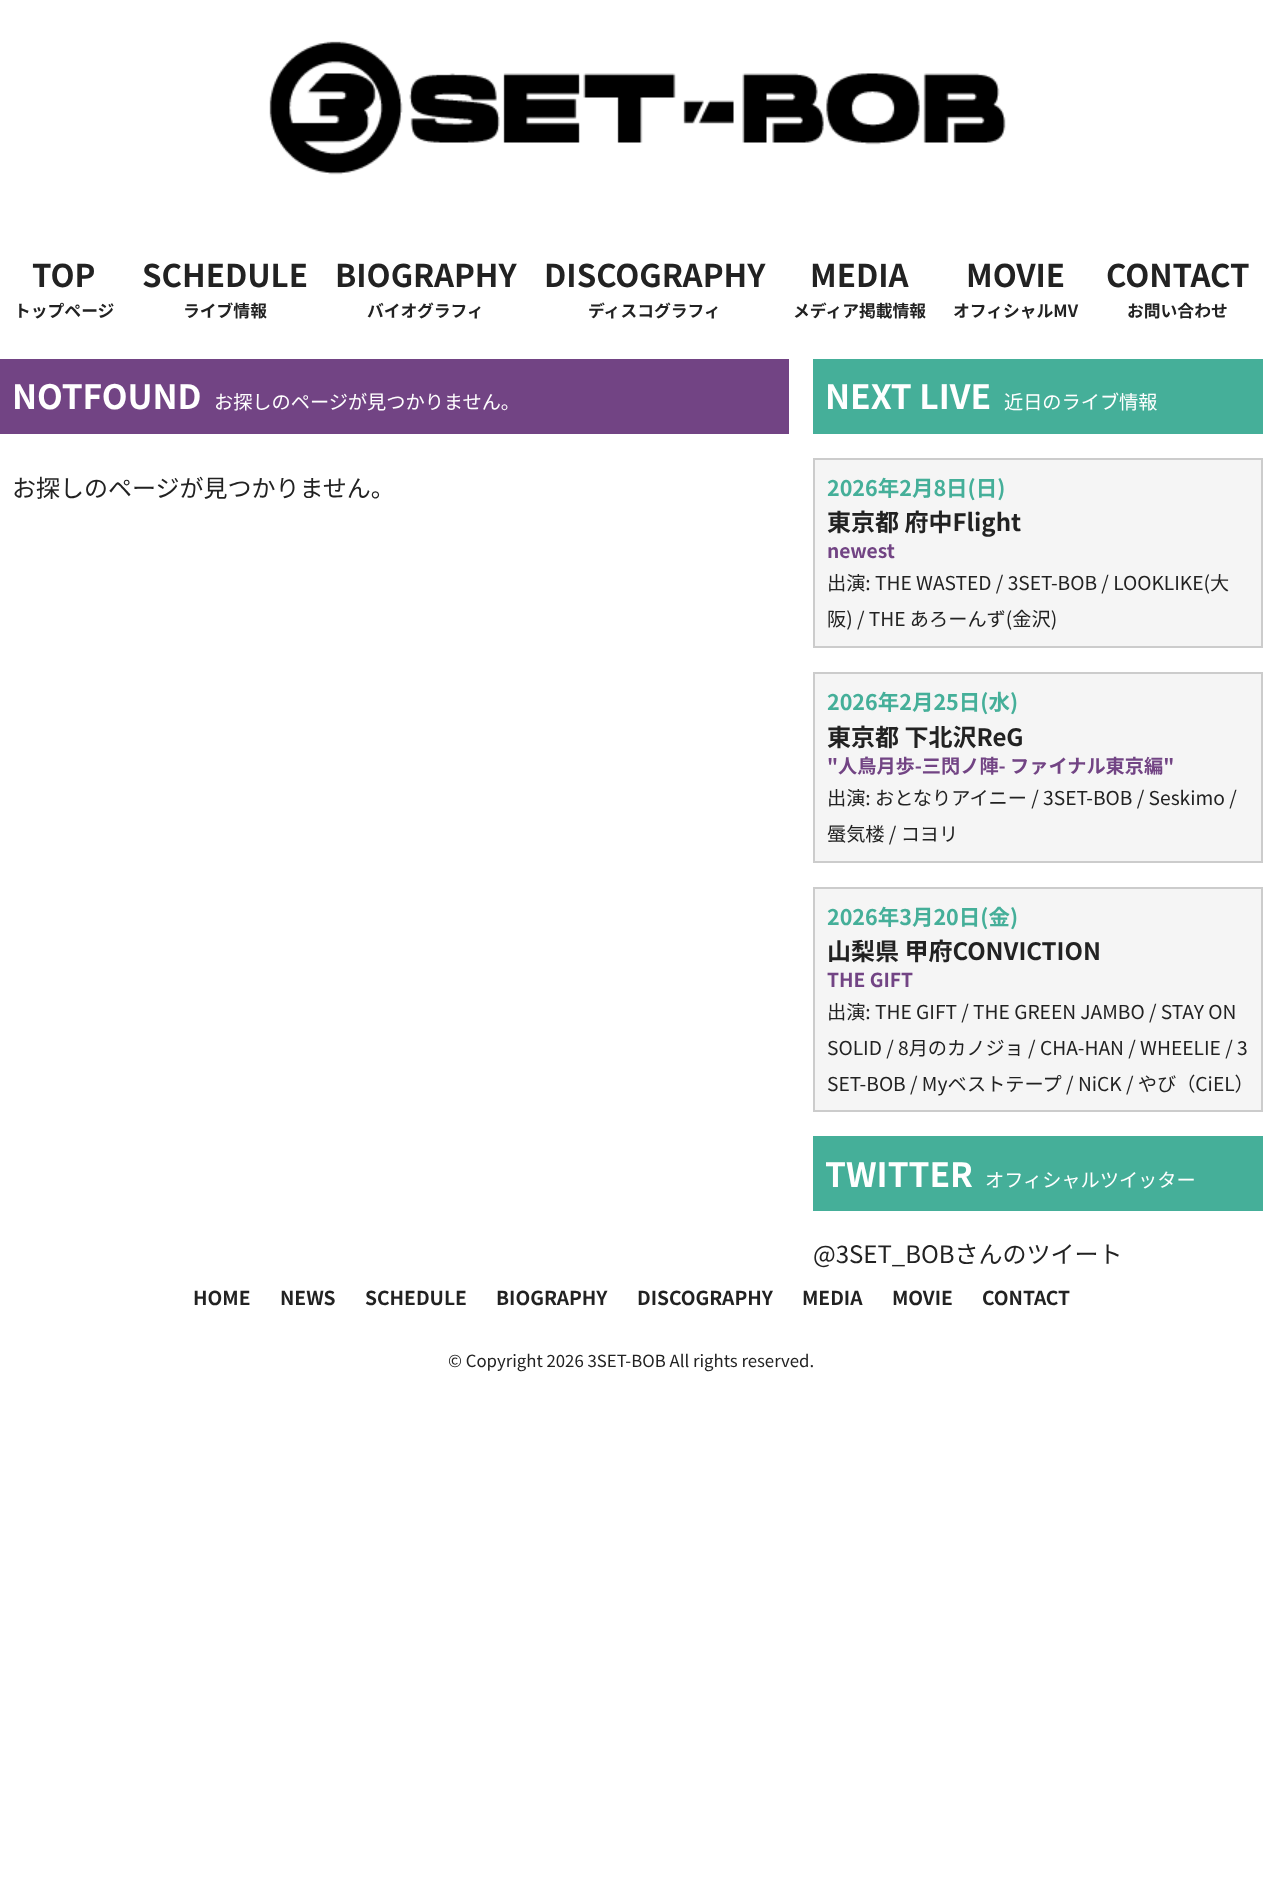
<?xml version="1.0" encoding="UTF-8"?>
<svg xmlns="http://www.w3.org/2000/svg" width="1263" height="1903">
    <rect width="100%" height="100%" fill="#FFFFFF"/>
    <image x="269" y="41" width="737" height="134" href="img_01.png"/>
    <text x="32" y="287" font-family="Noto Sans JP" font-size="31.25" font-weight="700" fill="#222222">TOP</text>
    <text x="14" y="317" font-family="Noto Sans JP" font-size="16.8" font-weight="700" fill="#222222">トップページ</text>
    <text x="142" y="287" font-family="Noto Sans JP" font-size="31.25" font-weight="700" fill="#222222">SCHEDULE</text>
    <text x="183" y="317" font-family="Noto Sans JP" font-size="16.8" font-weight="700" fill="#222222">ライブ情報</text>
    <text x="335" y="287" font-family="Noto Sans JP" font-size="31.25" font-weight="700" fill="#222222">BIOGRAPHY</text>
    <text x="367" y="317" font-family="Noto Sans JP" font-size="16.8" font-weight="700" fill="#222222">バイオグラフィ</text>
    <text x="544" y="287" font-family="Noto Sans JP" font-size="31.25" font-weight="700" fill="#222222">DISCOGRAPHY</text>
    <text x="588" y="317" font-family="Noto Sans JP" font-size="16.8" font-weight="700" fill="#222222">ディスコグラフィ</text>
    <text x="810" y="287" font-family="Noto Sans JP" font-size="31.25" font-weight="700" fill="#222222">MEDIA</text>
    <text x="793" y="317" font-family="Noto Sans JP" font-size="16.8" font-weight="700" fill="#222222">メディア掲載情報</text>
    <text x="966" y="287" font-family="Noto Sans JP" font-size="31.25" font-weight="700" fill="#222222">MOVIE</text>
    <text x="953" y="317" font-family="Noto Sans JP" font-size="16.8" font-weight="700" fill="#222222">オフィシャルMV</text>
    <text x="1106" y="287" font-family="Noto Sans JP" font-size="31.25" font-weight="700" fill="#222222">CONTACT</text>
    <text x="1127" y="317" font-family="Noto Sans JP" font-size="16.8" font-weight="700" fill="#222222">お問い合わせ</text>
    <rect x="0" y="359" width="789" height="75" fill="#724484"/>
    <text x="12" y="409" font-family="Noto Sans JP" font-size="33.5" font-weight="700" fill="#FFFFFF">NOTFOUND</text>
    <text x="214" y="409" font-family="Noto Sans JP" font-size="19.2" fill="#FFFFFF">お探しのページが見つかりません。</text>
    <text x="12" y="497" font-family="Noto Sans JP" font-size="24" fill="#222222">お探しのページが見つかりません。</text>
    <rect x="813" y="359" width="450" height="75" fill="#45AF99"/>
    <text x="825" y="409" font-family="Noto Sans JP" font-size="33.5" font-weight="700" fill="#FFFFFF">NEXT LIVE</text>
    <text x="1004" y="409" font-family="Noto Sans JP" font-size="19.2" fill="#FFFFFF">近日のライブ情報</text>
    <rect x="814" y="459" width="448" height="188" fill="#F5F5F5" stroke="#CCCCCC" stroke-width="2"/>
    <text x="827" y="496" font-family="Noto Sans JP" font-size="21.5" font-weight="700" fill="#45AF99">2026年2月8日(日)</text>
    <text x="827" y="531" font-family="Noto Sans JP" font-size="24" font-weight="700" fill="#222222">東京都 府中Flight</text>
    <text x="827" y="558" font-family="Noto Sans JP" font-size="19.2" font-weight="700" fill="#724484">newest</text>
    <text font-family="Noto Sans JP" font-size="19.2" fill="#222222">
        <tspan x="827" y="590">出演: THE WASTED / 3SET-BOB / LOOKLIKE(大</tspan>
        <tspan x="827" y="626">阪) / THE あろーんず(金沢)</tspan>
    </text>
    <rect x="814" y="673" width="448" height="189" fill="#F5F5F5" stroke="#CCCCCC" stroke-width="2"/>
    <text x="827" y="710" font-family="Noto Sans JP" font-size="21.5" font-weight="700" fill="#45AF99">2026年2月25日(水)</text>
    <text x="827" y="746" font-family="Noto Sans JP" font-size="24" font-weight="700" fill="#222222">東京都 下北沢ReG</text>
    <text x="827" y="773" font-family="Noto Sans JP" font-size="19.2" font-weight="700" fill="#724484">"人鳥月歩-三閃ノ陣- ファイナル東京編"</text>
    <text font-family="Noto Sans JP" font-size="19.2" fill="#222222">
        <tspan x="827" y="805">出演: おとなりアイニー / 3SET-BOB / Seskimo /</tspan>
        <tspan x="827" y="841">蜃気楼 / コヨリ</tspan>
    </text>
    <rect x="814" y="888" width="448" height="223" fill="#F5F5F5" stroke="#CCCCCC" stroke-width="2"/>
    <text x="827" y="925" font-family="Noto Sans JP" font-size="21.5" font-weight="700" fill="#45AF99">2026年3月20日(金)</text>
    <text x="827" y="960" font-family="Noto Sans JP" font-size="24" font-weight="700" fill="#222222">山梨県 甲府CONVICTION</text>
    <text x="827" y="987" font-family="Noto Sans JP" font-size="19.2" font-weight="700" fill="#724484">THE GIFT</text>
    <text font-family="Noto Sans JP" font-size="19.2" fill="#222222">
        <tspan x="827" y="1019">出演: THE GIFT / THE GREEN JAMBO / STAY ON</tspan>
        <tspan x="827" y="1055">SOLID / 8月のカノジョ / CHA-HAN / WHEELIE / 3</tspan>
        <tspan x="827" y="1091">SET-BOB / Myベストテープ / NiCK / やび（CiEL）</tspan>
    </text>
    <rect x="813" y="1136" width="450" height="75" fill="#45AF99"/>
    <text x="825" y="1187" font-family="Noto Sans JP" font-size="33.5" font-weight="700" fill="#FFFFFF">TWITTER</text>
    <text x="985" y="1187" font-family="Noto Sans JP" font-size="19.2" fill="#FFFFFF">オフィシャルツイッター</text>
    <text x="813" y="1263" font-family="Noto Sans JP" font-size="24" fill="#222222">@3SET_BOBさんのツイート</text>
    <text x="193" y="1305" font-family="Noto Sans JP" font-size="19.2" font-weight="700" fill="#222222">HOME</text>
    <text x="280" y="1305" font-family="Noto Sans JP" font-size="19.2" font-weight="700" fill="#222222">NEWS</text>
    <text x="365" y="1305" font-family="Noto Sans JP" font-size="19.2" font-weight="700" fill="#222222">SCHEDULE</text>
    <text x="496" y="1305" font-family="Noto Sans JP" font-size="19.2" font-weight="700" fill="#222222">BIOGRAPHY</text>
    <text x="637" y="1305" font-family="Noto Sans JP" font-size="19.2" font-weight="700" fill="#222222">DISCOGRAPHY</text>
    <text x="802" y="1305" font-family="Noto Sans JP" font-size="19.2" font-weight="700" fill="#222222">MEDIA</text>
    <text x="892" y="1305" font-family="Noto Sans JP" font-size="19.2" font-weight="700" fill="#222222">MOVIE</text>
    <text x="982" y="1305" font-family="Noto Sans JP" font-size="19.2" font-weight="700" fill="#222222">CONTACT</text>
    <text x="448" y="1367" font-family="Noto Sans JP" font-size="16.8" fill="#222222">© Copyright 2026 3SET-BOB All rights reserved.</text>
</svg>
